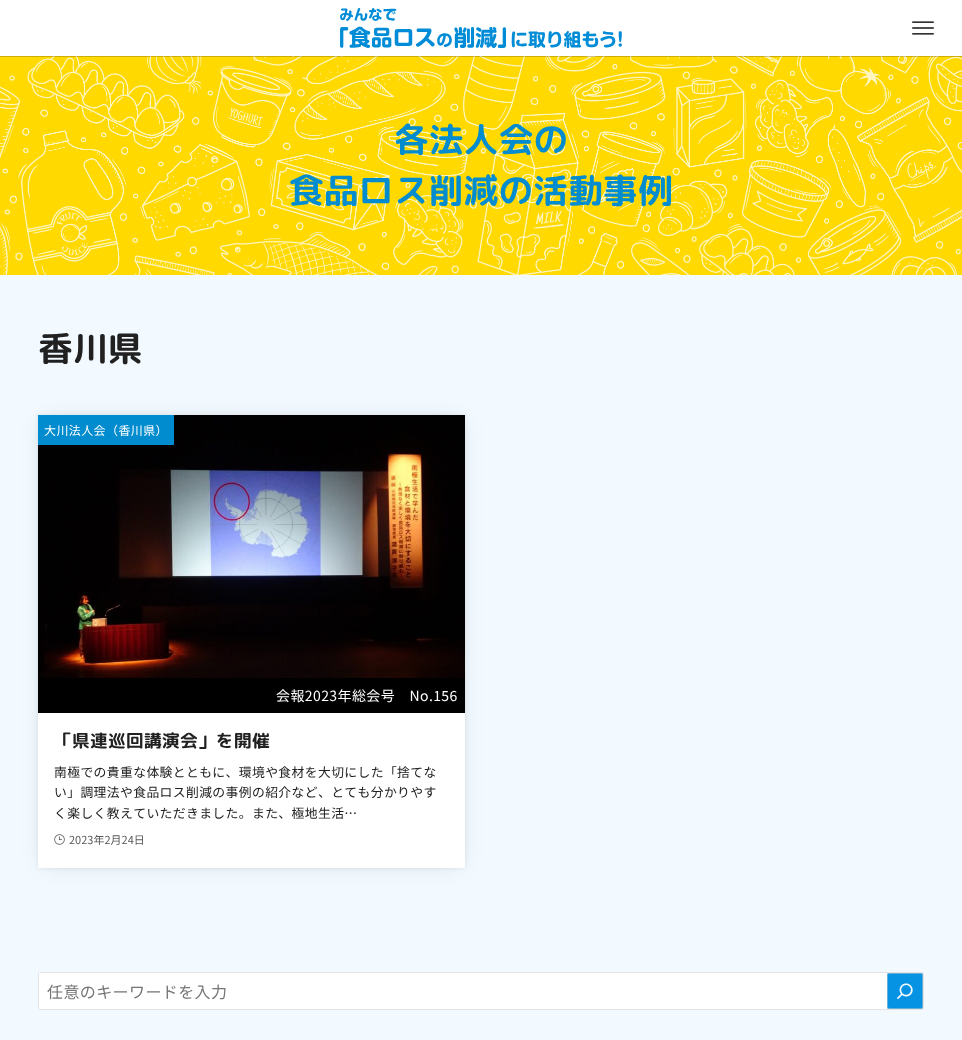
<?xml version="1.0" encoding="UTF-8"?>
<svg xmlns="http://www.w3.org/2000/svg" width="962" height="1040">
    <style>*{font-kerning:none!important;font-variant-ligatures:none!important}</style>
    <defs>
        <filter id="blur1" x="-50%" y="-200%" width="200%" height="500%"><feGaussianBlur stdDeviation="0.5"/></filter>
        <filter id="blur2" x="-50%" y="-200%" width="200%" height="500%"><feGaussianBlur stdDeviation="12"/></filter>
        <filter id="blur3" x="-50%" y="-200%" width="200%" height="500%"><feGaussianBlur stdDeviation="2"/></filter>
    </defs>
    <rect width="100%" height="100%" fill="#F2FAFF"/>
    <image x="0" y="56" width="962" height="219" href="img_03.png"/>
    <rect x="0" y="1" width="962" height="56" fill="#000000" fill-opacity="0.2" filter="url(#blur1)"/>
    <rect x="0" y="0" width="962" height="56" fill="#FFFFFF"/>
    <image x="340" y="8" width="282" height="40" href="img_01.png"/>
    <image x="912" y="21" width="22" height="14" href="img_02.png"/>
    <text x="394" y="152" font-family="'Rounded Mplus 1c Bold'" font-size="34.5" font-weight="700" letter-spacing="0.4" fill="#008CCE">各法人会の</text>
    <text x="289" y="203" font-family="'Rounded Mplus 1c Bold'" font-size="34.5" font-weight="700" letter-spacing="0.4" fill="#008CCE">食品ロス削減の活動事例</text>
    <text x="38" y="361" font-family="'Rounded Mplus 1c Bold'" font-size="34.5" font-weight="700" letter-spacing="0.4" fill="#212121">香川県</text>
    <rect x="46" y="424" width="411" height="437" fill="#000000" fill-opacity="0.15" filter="url(#blur2)"/>
    <rect x="37" y="414" width="429" height="455" fill="#000000" fill-opacity="0.05" filter="url(#blur3)"/>
    <rect x="38" y="713" width="427" height="155" fill="#FFFFFF"/>
    <image x="38" y="415" width="427" height="263" href="img_04.png"/>
    <rect x="38" y="415" width="136" height="30" fill="#008CCE"/>
    <text x="44" y="435" font-family="Noto Sans JP" font-size="12" letter-spacing="0.4" fill="#FFFFFF">大川法人会（香川県）</text>
    <rect x="38" y="678" width="427" height="35" fill="#000000"/>
    <text x="276" y="701" font-family="Noto Sans JP" font-size="14" letter-spacing="0.4" fill="#FFFFFF">会報2023年総会号　No.156</text>
    <text x="54" y="747" font-family="'Rounded Mplus 1c Bold'" font-size="17.6" font-weight="700" letter-spacing="0.4" fill="#212121">「県連巡回講演会」を開催</text>
    <text font-family="Noto Sans JP" font-size="12.8" letter-spacing="0.4" fill="#212121">
        <tspan x="54" y="777">南極での貴重な体験とともに、環境や食材を大切にした「捨てな</tspan>
        <tspan x="54" y="797">い」調理法や食品ロス削減の事例の紹介など、とても分かりやす</tspan>
        <tspan x="54" y="818">く楽しく教えていただきました。また、極地生活…</tspan>
    </text>
    <image x="54" y="834" width="11" height="11" href="img_05.png"/>
    <text x="69" y="844" font-family="Noto Sans JP" font-size="11" fill="#595959">2023年2月24日</text>
    <rect x="38.5" y="972.5" width="885" height="37" rx="1.5" fill="#FFFFFF" stroke="#E3E3E4"/>
    <rect x="39" y="973" width="1" height="36" fill="#FFFFFF"/>
    <text x="47" y="998" font-family="Noto Sans JP" font-size="16" letter-spacing="0.4" fill="#757575">任意のキーワードを入力</text>
    <rect x="887" y="973" width="36" height="36" rx="2" fill="#0693E3"/>
    <rect x="887.5" y="973.5" width="35" height="35" rx="1.5" fill="none" stroke="#C8C8C8" stroke-opacity="0.5"/>
    <image x="897" y="983" width="16" height="17" href="img_06.png"/>
</svg>
